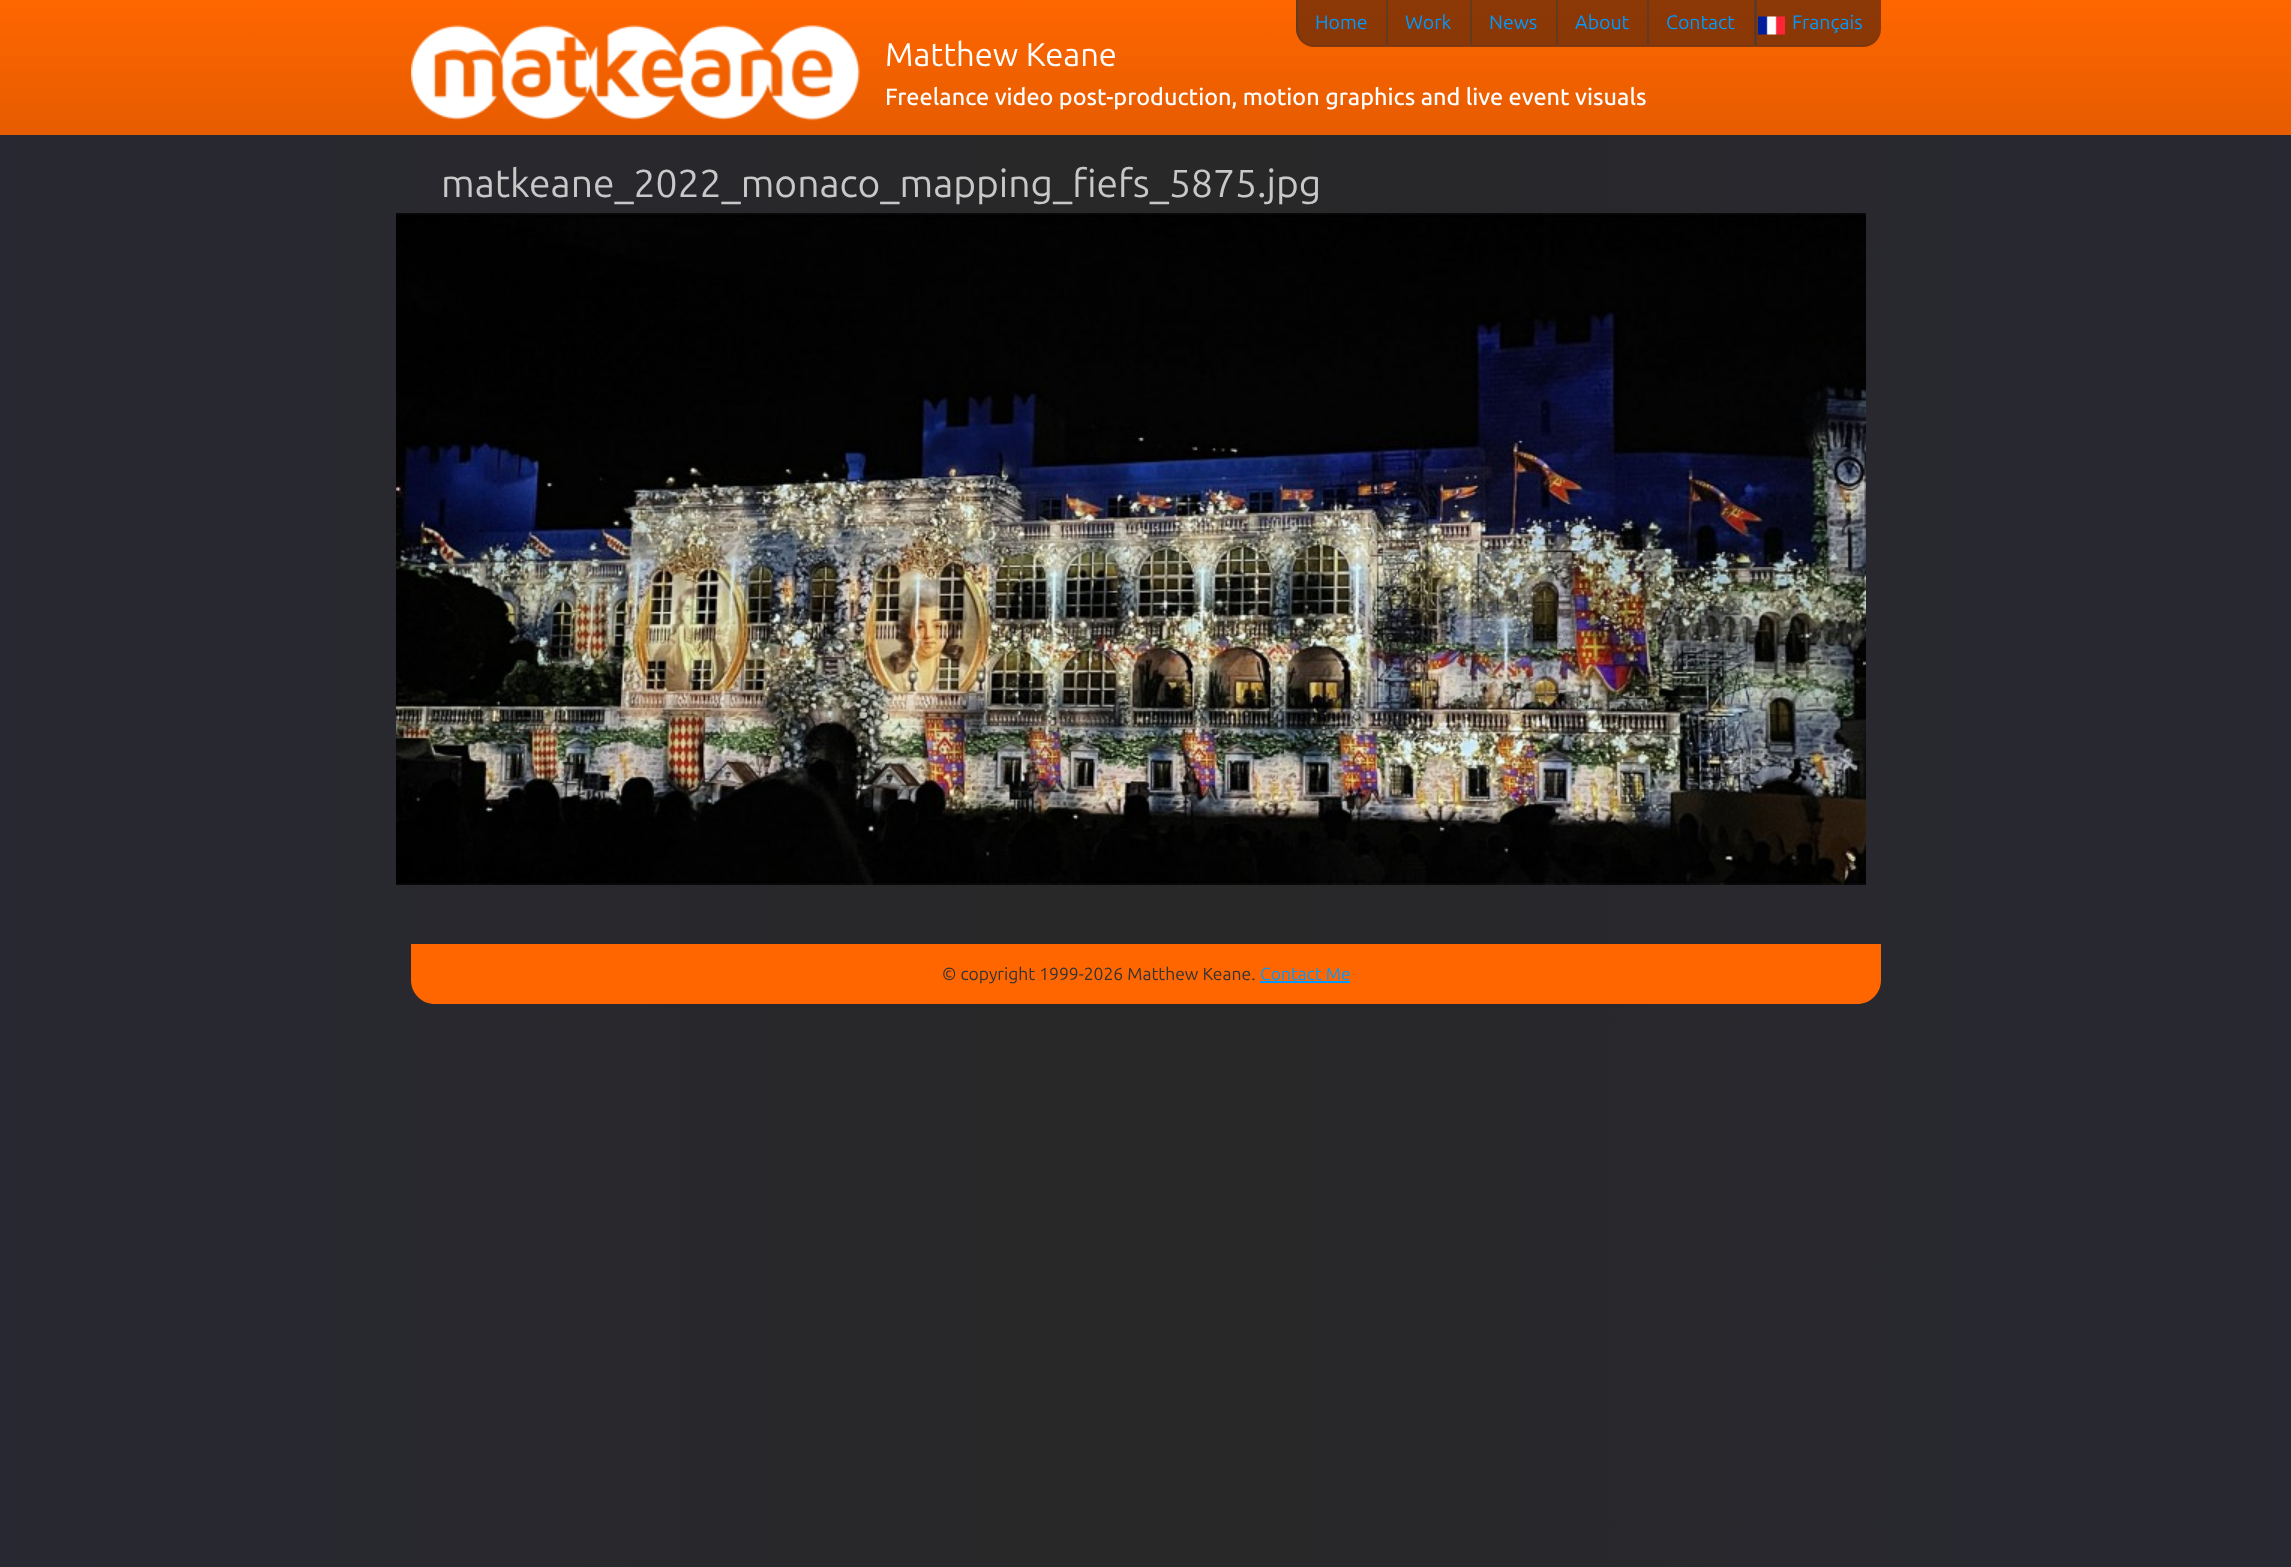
<?xml version="1.0" encoding="UTF-8"?>
<svg xmlns="http://www.w3.org/2000/svg" width="2291" height="1567">
    <defs>
        <linearGradient id="g1" gradientUnits="userSpaceOnUse" x1="0" y1="517" x2="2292" y2="517"><stop offset="0" stop-color="#282832"/><stop offset="0.5" stop-color="#282828"/><stop offset="1" stop-color="#282832"/></linearGradient>
        <linearGradient id="g2" gradientUnits="userSpaceOnUse" x1="1146" y1="0" x2="1146" y2="135"><stop offset="0" stop-color="#FF6600"/><stop offset="1" stop-color="#E65C00"/></linearGradient>
    </defs>
    <rect width="100%" height="100%" fill="#FFFFFF"/>
    <rect x="0" y="135" width="2291" height="1432" fill="url(#g1)"/>
    <rect x="0" y="0" width="2291" height="135" fill="url(#g2)"/>
    <path d="M 1296 0 H 1881 V 29 C 1881 39 1873 47 1863 47 H 1314 C 1304 47 1296 39 1296 29 Z" fill="#1C0C0C" fill-opacity="0.5"/>
    <path d="M 1302 40 V 41 C 1305 44 1309 46 1314 46 H 1863 C 1872 46 1880 39 1881 30 C 1880 39 1872 45 1863 45 H 1314 C 1309 45 1305 43 1302 40 Z" fill="#723916"/>
    <path d="M 1296 0 H 1298 V 28 C 1298 33 1300 37 1302 40 V 41 C 1298 38 1296 33 1296 28 Z" fill="#3C3C3C" fill-opacity="0.5"/>
    <text x="1315" y="29" font-family="Ubuntu" font-size="19.5" fill="#0099FF">Home</text>
    <rect x="1386" y="0" width="2" height="45" fill="#3C3C3C" fill-opacity="0.5"/>
    <text x="1405" y="29" font-family="Ubuntu" font-size="19.5" fill="#0099FF">Work</text>
    <rect x="1470" y="0" width="2" height="45" fill="#3C3C3C" fill-opacity="0.5"/>
    <text x="1489" y="29" font-family="Ubuntu" font-size="19.5" fill="#0099FF">News</text>
    <rect x="1556" y="0" width="2" height="45" fill="#3C3C3C" fill-opacity="0.5"/>
    <text x="1575" y="29" font-family="Ubuntu" font-size="19.5" fill="#0099FF">About</text>
    <rect x="1754" y="0" width="2" height="45" fill="#3C3C3C" fill-opacity="0.5"/>
    <rect x="1647" y="0" width="2" height="45" fill="#3C3C3C" fill-opacity="0.5"/>
    <text x="1666" y="29" font-family="Ubuntu" font-size="19.5" fill="#0099FF">Contact</text>
    <image x="1758" y="16" width="27" height="19" href="img_01.png"/>
    <rect x="1755" y="0" width="2" height="45" fill="#3C3C3C" fill-opacity="0.5"/>
    <text x="1792" y="29" font-family="Ubuntu" font-size="19.5" fill="#0099FF">Français</text>
    <image x="411" y="25" width="449" height="96" href="img_02.png"/>
    <text x="885" y="66" font-family="Ubuntu" font-size="32.75" fill="#FFFFFF">Matthew Keane</text>
    <text x="885" y="105" font-family="Ubuntu" font-size="23.4" font-weight="500" fill="#FFFFFF">Freelance video post-production, motion graphics and live event visuals</text>
    <text x="441" y="197" font-family="Ubuntu" font-size="39" fill="#C8C8C8">matkeane_2022_monaco_mapping_fiefs_5875.jpg</text>
    <image x="396" y="213" width="1470" height="672" href="img_03.png"/>
    <path d="M 411 944 H 1881 V 980 C 1881 993.5 1870.5 1004 1857 1004 H 435 C 421.5 1004 411 993.5 411 980 Z" fill="#FF6600"/>
    <text x="942" y="980" font-family="Ubuntu" font-size="17.5" fill="#333333">© copyright 1999-2026 Matthew Keane.</text>
    <text x="1260" y="980" font-family="Ubuntu" font-size="17.5" fill="#0099FF">Contact Me</text>
    <rect x="1260" y="981" width="90" height="2" fill="#0099FF"/>
</svg>
